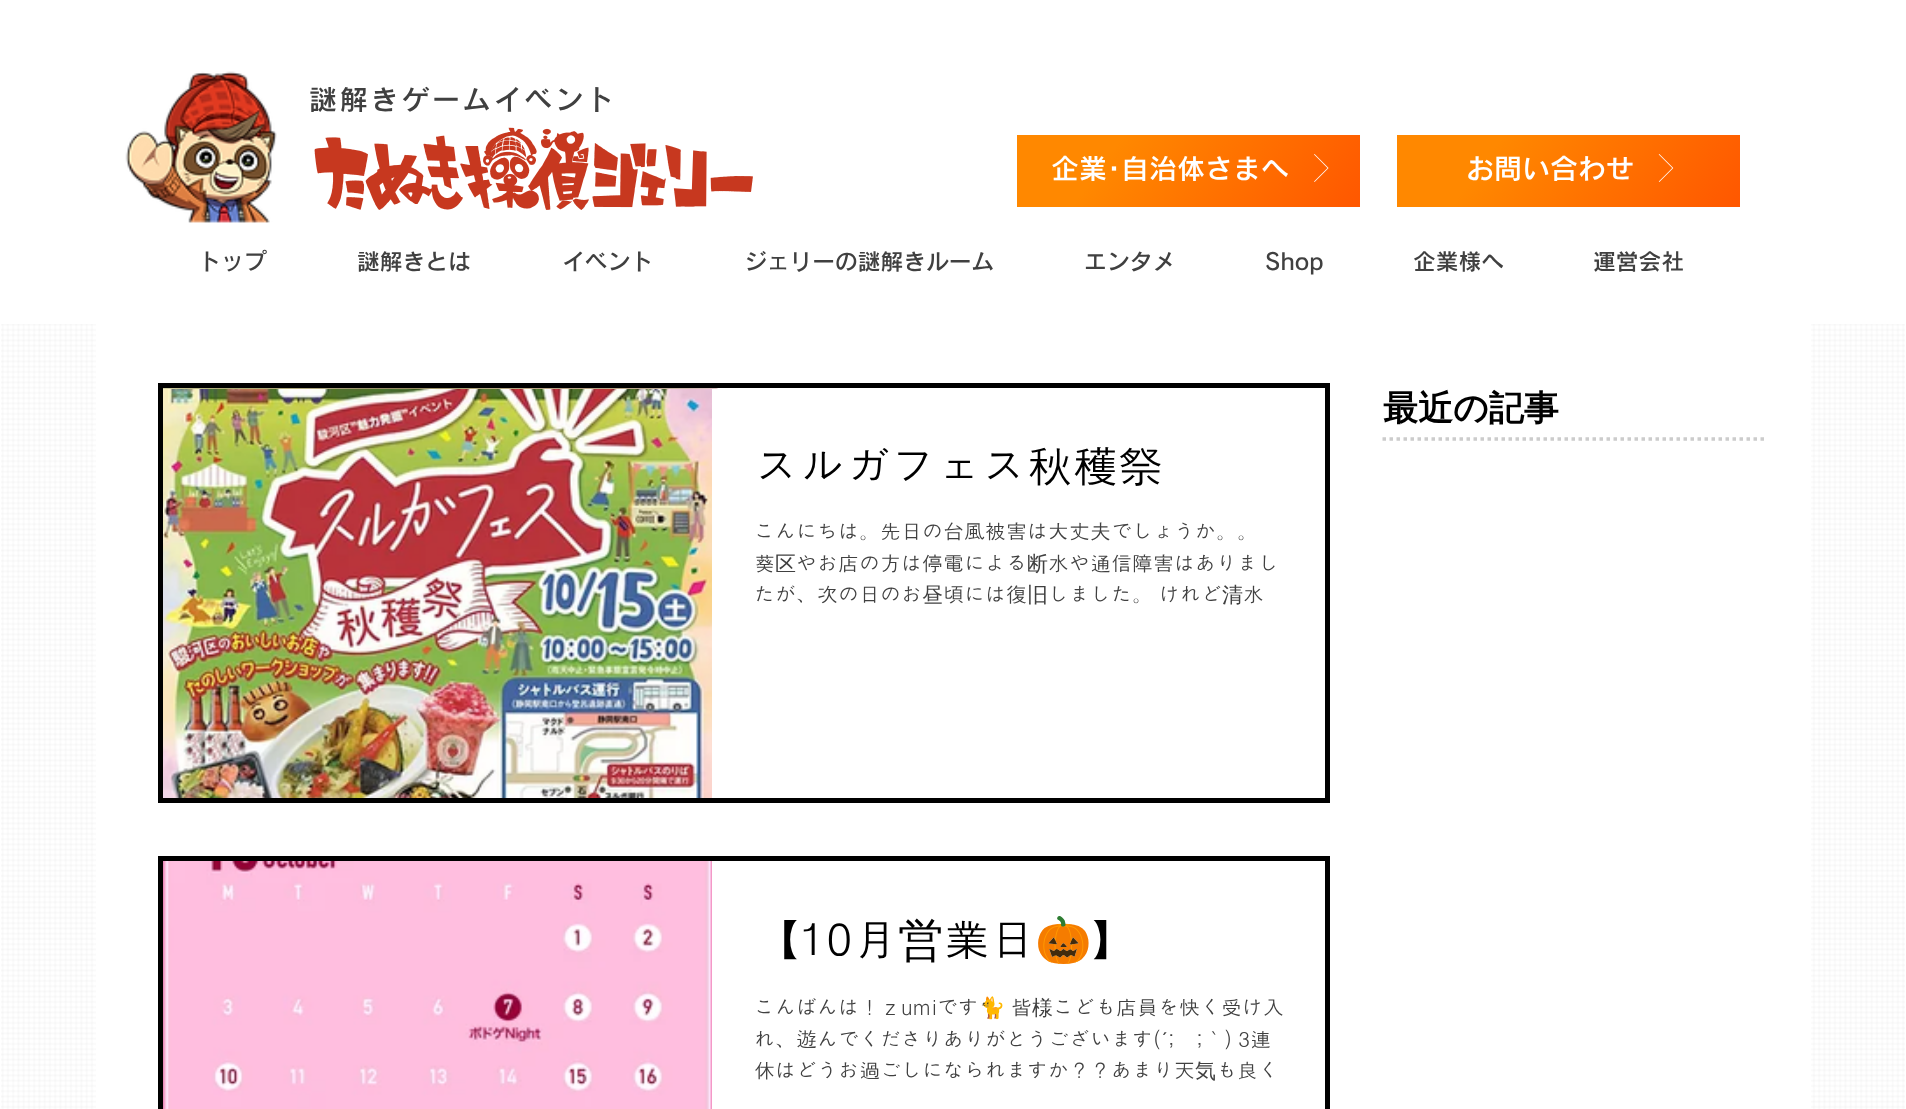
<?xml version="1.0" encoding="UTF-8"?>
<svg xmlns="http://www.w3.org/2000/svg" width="1906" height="1109">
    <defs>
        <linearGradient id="g1" gradientUnits="userSpaceOnUse" x1="1059" y1="77" x2="1318" y2="265"><stop offset="0.27" stop-color="#FF8800"/><stop offset="1" stop-color="#FF5700"/></linearGradient>
        <linearGradient id="g2" gradientUnits="userSpaceOnUse" x1="1439" y1="77" x2="1697" y2="265"><stop offset="0.27" stop-color="#FF8800"/><stop offset="1" stop-color="#FF5700"/></linearGradient>
    </defs>
    <rect width="100%" height="100%" fill="#FFFFFF"/>
    <image x="125" y="71" width="152" height="152" href="img_01.png"/>
    <text x="309" y="110" font-family="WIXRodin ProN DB" font-size="28" font-weight="600" letter-spacing="2.75" fill="#404040">謎解きゲームイベント</text>
    <image x="314" y="127" width="439" height="83" href="img_02.png"/>
    <rect x="1017" y="135" width="343" height="72" fill="url(#g1)"/>
    <text x="1051" y="179" font-family="WIXRodin ProN DB" font-size="28" font-weight="600" fill="#FFFFFF">企業･自治体さまへ</text>
    <image x="1314" y="154" width="15" height="28" href="img_03.png"/>
    <rect x="1397" y="135" width="343" height="72" fill="url(#g2)"/>
    <text x="1466" y="179" font-family="WIXRodin ProN DB" font-size="28" font-weight="600" fill="#FFFFFF">お問い合わせ</text>
    <image x="1658" y="154" width="16" height="28" href="img_04.png"/>
    <text x="198" y="270" font-family="WIXRodin ProN DB" font-size="22.75" font-weight="600" fill="#404040">トップ</text>
    <text x="357" y="270" font-family="WIXRodin ProN DB" font-size="22.75" font-weight="600" fill="#404040">謎解きとは</text>
    <text x="562" y="270" font-family="WIXRodin ProN DB" font-size="22.75" font-weight="600" fill="#404040">イベント</text>
    <text x="744" y="270" font-family="WIXRodin ProN DB" font-size="22.75" font-weight="600" fill="#404040">ジェリーの謎解きルーム</text>
    <text x="1084" y="270" font-family="WIXRodin ProN DB" font-size="22.75" font-weight="600" fill="#404040">エンタメ</text>
    <text x="1265" y="270" font-family="WIXRodin ProN DB" font-size="22.75" font-weight="600" fill="#404040">Shop</text>
    <text x="1413" y="270" font-family="WIXRodin ProN DB" font-size="22.75" font-weight="600" fill="#404040">企業様へ</text>
    <text x="1593" y="270" font-family="WIXRodin ProN DB" font-size="22.75" font-weight="600" fill="#404040">運営会社</text>
    <image x="1" y="324" width="1904" height="785" href="img_08.png"/>
    <rect x="96" y="324" width="1715" height="785" fill="#FFFFFF"/>
    <text x="1383" y="420" font-family="WenQuanYi Zen Hei" font-size="35" font-weight="700" fill="#000000">最近の記事</text>
    <path d="M 1382.5 439 H 1767.5" fill="none" stroke="#CCCCCC" stroke-width="3.5" stroke-dasharray="3.5 3.5"/>
    <rect x="160.5" y="385.5" width="1167" height="415" fill="none" stroke="#000000" stroke-width="5"/>
    <image x="163" y="388" width="555" height="1" href="img_05.png"/>
    <image x="163" y="389" width="549" height="409" href="img_06.png"/>
    <text x="754" y="483" font-family="Dotum" font-size="45.5" fill="#000000">スルガフェス秋穫祭</text>
    <text font-family="Dotum" font-size="21" fill="#404040">
        <tspan x="754" y="539">こんにちは。先日の台風被害は大丈夫でしょうか。。</tspan>
        <tspan x="754" y="571">葵</tspan>
    </text>
    <text x="775" y="571" font-family="WenQuanYi Zen Hei" font-size="21" font-weight="500" fill="#404040">区</text>
    <text x="796" y="571" font-family="Dotum" font-size="21" fill="#404040">やお店の方は停電による</text>
    <text x="1027" y="571" font-family="WenQuanYi Zen Hei" font-size="21" font-weight="500" fill="#404040">断</text>
    <text x="1048" y="571" font-family="Dotum" font-size="21" fill="#404040">水や通信障害はありまし</text>
    <text x="754" y="602" font-family="Dotum" font-size="21" fill="#404040">たが、次の日のお</text>
    <text x="922" y="602" font-family="WenQuanYi Zen Hei" font-size="21" font-weight="500" fill="#404040">昼</text>
    <text x="943" y="602" font-family="Dotum" font-size="21" fill="#404040">頃には復</text>
    <text x="1027" y="602" font-family="WenQuanYi Zen Hei" font-size="21" font-weight="500" fill="#404040">旧</text>
    <text x="1048" y="602" word-spacing="-1" font-family="Dotum" font-size="21" fill="#404040">しました。 けれど</text>
    <text x="1222" y="602" font-family="WenQuanYi Zen Hei" font-size="21" font-weight="500" fill="#404040">清</text>
    <text x="1243" y="602" font-family="Dotum" font-size="21" fill="#404040">水</text>
    <rect x="160.5" y="858.5" width="1167" height="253" fill="none" stroke="#000000" stroke-width="5"/>
    <image x="163" y="861" width="549" height="248" href="img_07.png"/>
    <text x="754" y="956" font-family="Dotum" font-size="45.5" fill="#000000">【10月</text>
    <text x="898" y="956" font-family="WenQuanYi Zen Hei" font-size="45.5" font-weight="500" fill="#000000">営</text>
    <text x="944" y="956" font-family="Dotum" font-size="45.5" fill="#000000">業日</text>
    <text x="1035" y="956" font-family="Noto Color Emoji" font-size="45.5" fill="#000000">🎃</text>
    <text x="1091" y="956" font-family="Dotum" font-size="45.5" fill="#000000">】</text>
    <text x="754" y="1015" font-family="Dotum" font-size="21" fill="#404040">こんばんは！ｚumiです</text>
    <text x="979" y="1015" font-family="Noto Color Emoji" font-size="21" fill="#404040">🐈</text>
    <text x="1011" y="1015" font-family="Dotum" font-size="21" fill="#404040">皆</text>
    <text x="1032" y="1015" font-family="WenQuanYi Zen Hei" font-size="21" font-weight="500" fill="#404040">様</text>
    <text x="1053" y="1015" font-family="Dotum" font-size="21" fill="#404040">こども店員を快く受け入</text>
    <text font-family="Dotum" font-size="21" fill="#404040">
        <tspan x="754" y="1047" word-spacing="-1">れ、遊んでくださりありがとうございます(´;　;｀) 3連</tspan>
        <tspan x="754" y="1078">休はどうお過ごしになられますか？？あまり天</tspan>
    </text>
    <text x="1195" y="1078" font-family="WenQuanYi Zen Hei" font-size="21" font-weight="500" fill="#404040">気</text>
    <text x="1216" y="1078" font-family="Dotum" font-size="21" fill="#404040">も良く</text>
</svg>
